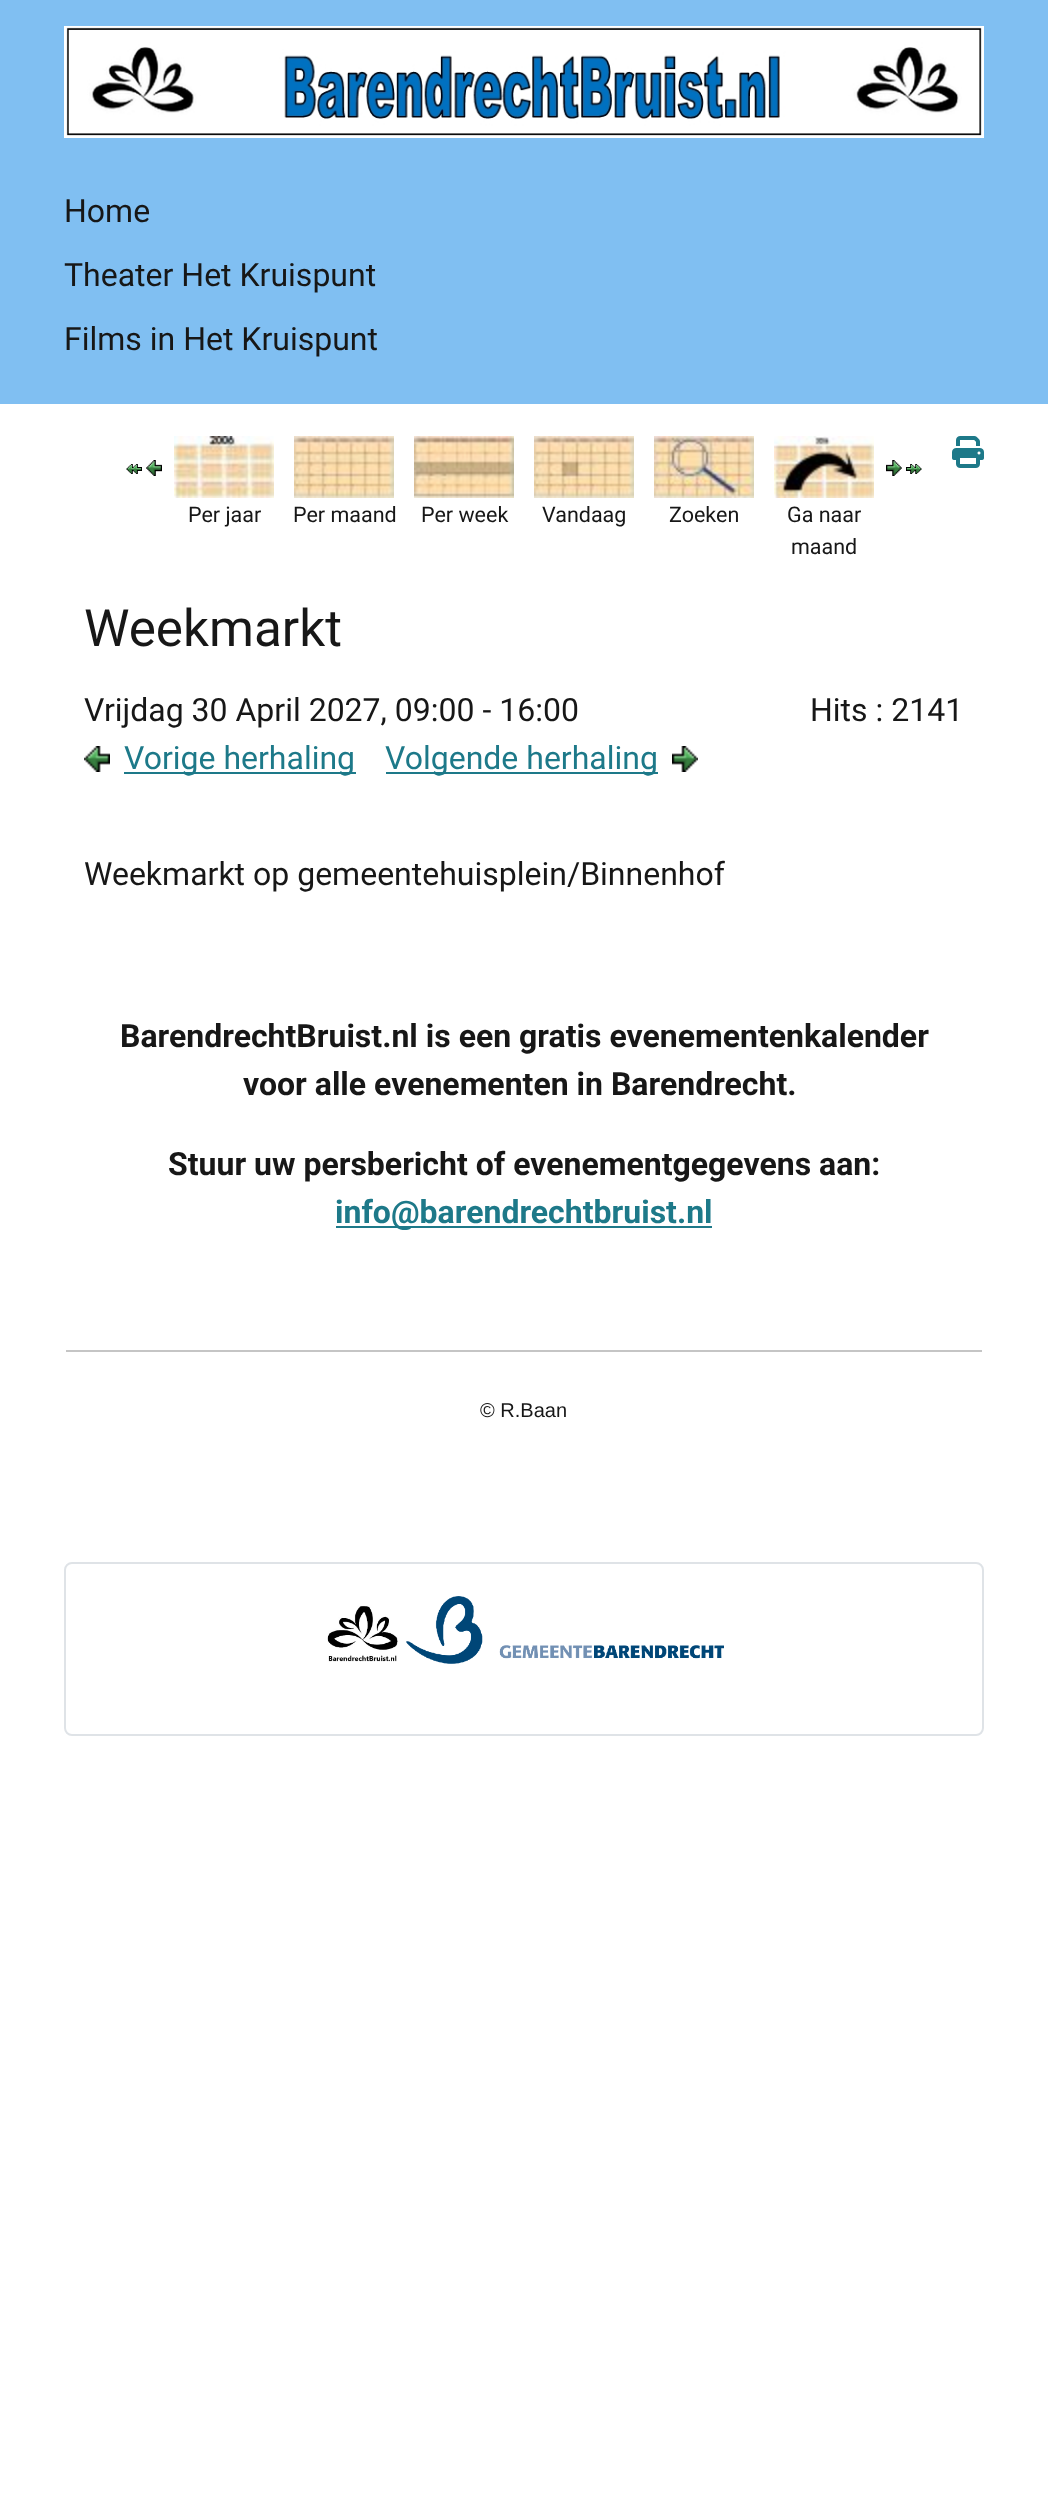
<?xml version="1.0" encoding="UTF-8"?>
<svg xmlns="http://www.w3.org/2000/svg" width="1048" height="2509">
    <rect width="100%" height="100%" fill="#FFFFFF"/>
    <rect x="0" y="0" width="1048" height="404" fill="#80BFF2"/>
    <image x="64" y="26" width="920" height="112" href="img_01.png"/>
    <text x="64" y="222" font-family="Roboto" font-size="32" fill="#171717">Home</text>
    <text x="64" y="286" font-family="Roboto" font-size="32" fill="#171717">Theater Het Kruispunt</text>
    <text x="64" y="350" font-family="Roboto" font-size="32" fill="#171717">Films in Het Kruispunt</text>
    <image x="952" y="436" width="32" height="32" href="img_02.png"/>
    <image x="126" y="464" width="16" height="10" href="img_03.png"/>
    <image x="146" y="460" width="16" height="16" href="img_04.png"/>
    <image x="174" y="436" width="100" height="62" href="img_05.png"/>
    <image x="294" y="436" width="100" height="62" href="img_06.png"/>
    <image x="414" y="436" width="100" height="62" href="img_07.png"/>
    <image x="534" y="436" width="100" height="62" href="img_08.png"/>
    <image x="654" y="436" width="100" height="62" href="img_09.png"/>
    <image x="774" y="436" width="100" height="62" href="img_10.png"/>
    <image x="886" y="460" width="16" height="16" href="img_11.png"/>
    <image x="906" y="464" width="16" height="10" href="img_12.png"/>
    <text x="188" y="522" font-family="Roboto" font-size="21.5" fill="#171717">Per jaar</text>
    <text x="293" y="522" font-family="Roboto" font-size="21.5" fill="#171717">Per maand</text>
    <text x="421" y="522" font-family="Roboto" font-size="21.5" fill="#171717">Per week</text>
    <text x="542" y="522" font-family="Roboto" font-size="21.5" fill="#171717">Vandaag</text>
    <text x="669" y="522" font-family="Roboto" font-size="21.5" fill="#171717">Zoeken</text>
    <text x="787" y="522" font-family="Roboto" font-size="21.5" fill="#171717">Ga naar</text>
    <text x="791" y="554" font-family="Roboto" font-size="21.5" fill="#171717">maand</text>
    <text x="84" y="646" font-family="Roboto" font-size="51.25" fill="#171717">Weekmarkt</text>
    <text x="84" y="721" font-family="Roboto" font-size="32" fill="#171717">Vrijdag 30 April 2027, 09:00 - 16:00</text>
    <image x="84" y="746" width="26" height="26" href="img_13.png"/>
    <rect x="124" y="772" width="232" height="2" fill="#1D7989"/>
    <text x="124" y="769" font-family="Roboto" font-size="32" fill="#1D7989">Vorige herhaling</text>
    <rect x="386" y="772" width="272" height="2" fill="#1D7989"/>
    <text x="385" y="769" font-family="Roboto" font-size="32" fill="#1D7989">Volgende herhaling</text>
    <image x="672" y="746" width="26" height="26" href="img_14.png"/>
    <text x="810" y="721" font-family="Roboto" font-size="32" fill="#171717">Hits : 2141</text>
    <text x="84" y="885" font-family="Roboto" font-size="32" fill="#171717">Weekmarkt op gemeentehuisplein/Binnenhof</text>
    <text x="120" y="1047" font-family="Roboto" font-size="32" font-weight="700" fill="#171717">BarendrechtBruist.nl is een gratis evenementenkalender</text>
    <text x="243" y="1095" font-family="Roboto" font-size="32" font-weight="700" fill="#171717">voor alle evenementen in Barendrecht.</text>
    <text x="168" y="1175" font-family="Roboto" font-size="32" font-weight="700" fill="#171717">Stuur uw persbericht of evenementgegevens aan:</text>
    <rect x="336" y="1226" width="376" height="2" fill="#1D7989"/>
    <text x="335" y="1223" font-family="Roboto" font-size="32" font-weight="700" fill="#1D7989">info@barendrechtbruist.nl</text>
    <rect x="66" y="1350" width="916" height="2" fill="#C5C5C5"/>
    <text x="480" y="1417" font-family="Liberation Sans" font-size="20" fill="#171717">© R.Baan</text>
    <rect x="65" y="1563" width="918" height="172" rx="7" fill="none" stroke="#DFE3E7" stroke-width="2"/>
    <image x="327" y="1596" width="397" height="68" href="img_15.png"/>
</svg>
